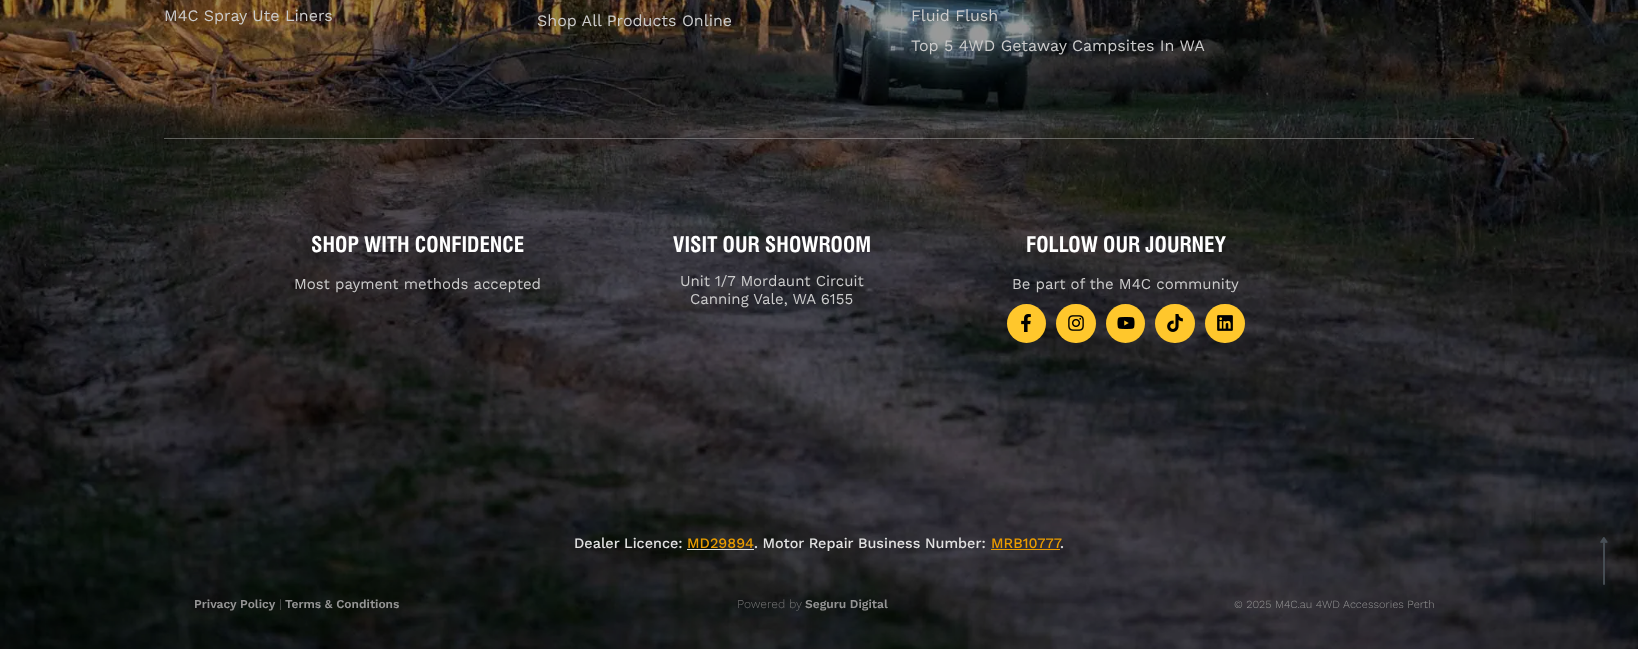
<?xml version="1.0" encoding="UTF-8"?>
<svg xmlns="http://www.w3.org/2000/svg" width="1638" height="650">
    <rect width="100%" height="100%" fill="#FFFFFF"/>
    <image x="0" y="0" width="1638" height="649" href="img_01.png"/>
    <text x="164" y="21" font-family="Work Sans" font-size="16" fill="#CCCCCC">M4C Spray Ute Liners</text>
    <text x="537" y="26" font-family="Work Sans" font-size="16" fill="#CCCCCC">Shop All Products Online</text>
    <text font-family="Work Sans" font-size="16" fill="#CCCCCC">
        <tspan x="911" y="21">Fluid Flush</tspan>
        <tspan x="911" y="51">Top 5 4WD Getaway Campsites In WA</tspan>
    </text>
    <rect x="164" y="138" width="1310" height="1" fill="#CCCCCC" fill-opacity="0.4"/>
    <text x="311" y="252" font-family="'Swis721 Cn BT'" font-size="21" font-weight="700" fill="#FFFFFF">SHOP WITH CONFIDENCE</text>
    <text x="294" y="289" font-family="Work Sans" font-size="15" fill="#CCCCCC">Most payment methods accepted</text>
    <text x="673" y="252" font-family="'Swis721 Cn BT'" font-size="21" font-weight="700" fill="#FFFFFF">VISIT OUR SHOWROOM</text>
    <text x="680" y="286" font-family="Work Sans" font-size="15" fill="#CCCCCC">Unit 1/7 Mordaunt Circuit</text>
    <text x="690" y="304" font-family="Work Sans" font-size="15" fill="#CCCCCC">Canning Vale, WA 6155</text>
    <text x="1026" y="252" font-family="'Swis721 Cn BT'" font-size="21" font-weight="700" fill="#FFFFFF">FOLLOW OUR JOURNEY</text>
    <text x="1012" y="289" font-family="Work Sans" font-size="15" fill="#CCCCCC">Be part of the M4C community</text>
    <circle cx="1026.5" cy="323.5" r="19.5" fill="#FFC72C"/>
    <image x="1021" y="314" width="10" height="18" href="img_02.png"/>
    <rect x="1056" y="304" width="40" height="39" rx="19.5" fill="#FFC72C"/>
    <image x="1068" y="315" width="16" height="16" href="img_03.png"/>
    <circle cx="1125.5" cy="323.5" r="19.5" fill="#FFC72C"/>
    <image x="1117" y="317" width="18" height="12" href="img_04.png"/>
    <rect x="1155" y="304" width="40" height="39" rx="19.5" fill="#FFC72C"/>
    <image x="1167" y="314" width="16" height="18" href="img_05.png"/>
    <rect x="1205" y="304" width="40" height="39" rx="19.5" fill="#FFC72C"/>
    <image x="1217" y="315" width="16" height="16" href="img_06.png"/>
    <text x="574" y="548" font-family="Work Sans" font-size="14.4" font-weight="500" fill="#E2E2E2">Dealer Licence:</text>
    <text x="687" y="548" font-family="Work Sans" font-size="14.4" font-weight="500" fill="#EA9C00">MD29894</text>
    <rect x="687" y="549" width="67" height="1" fill="#E2E2E2"/>
    <text x="754" y="548" font-family="Work Sans" font-size="14.4" font-weight="500" fill="#E2E2E2">. Motor Repair Business Number:</text>
    <text x="991" y="548" font-family="Work Sans" font-size="14.4" font-weight="500" fill="#EA9C00">MRB10777</text>
    <rect x="991" y="549" width="69" height="1" fill="#EA9C00"/>
    <text x="1060" y="548" font-family="Work Sans" font-size="14.4" font-weight="500" fill="#E2E2E2">.</text>
    <text x="194" y="608" font-family="Work Sans" font-size="12" font-weight="600" fill="#959595">Privacy Policy</text>
    <text x="279" y="608" font-family="Work Sans" font-size="12" font-weight="300" fill="#737373">|</text>
    <text x="285" y="608" font-family="Work Sans" font-size="12" font-weight="600" fill="#959595">Terms &amp; Conditions</text>
    <text x="737" y="608" font-family="Work Sans" font-size="12" font-weight="300" fill="#737373">Powered by</text>
    <text x="805" y="608" font-family="Work Sans" font-size="12" font-weight="600" fill="#959595">Seguru Digital</text>
    <text x="1234" y="608" font-family="Work Sans" font-size="11" font-weight="300" fill="#959595">© 2025 M4C.au 4WD Accessories Perth</text>
    <image x="1600" y="537" width="8" height="48" href="img_07.png"/>
</svg>
